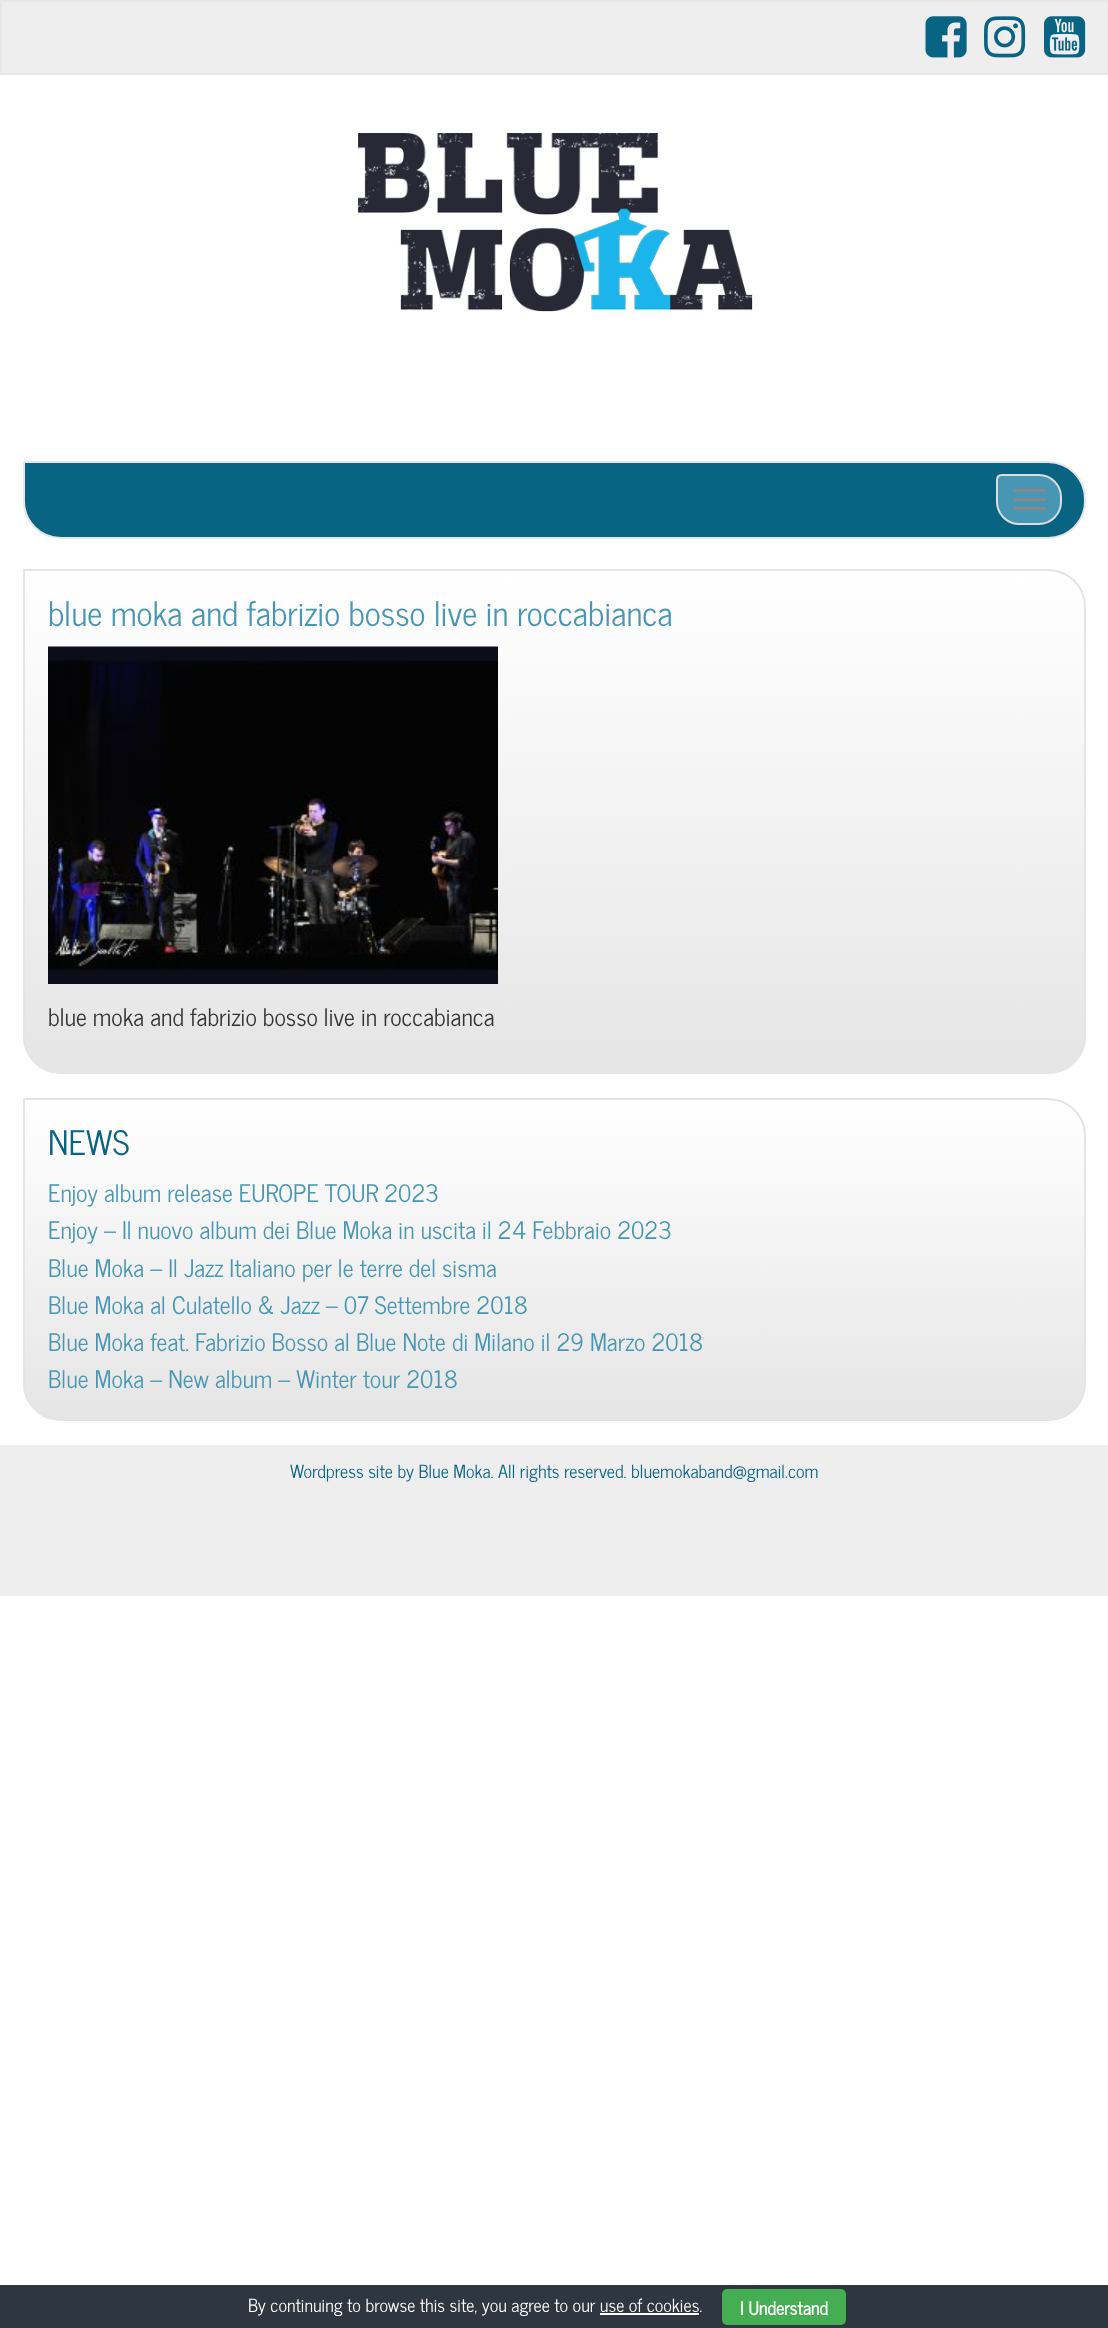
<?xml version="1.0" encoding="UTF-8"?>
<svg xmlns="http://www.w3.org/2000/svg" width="1108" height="2328">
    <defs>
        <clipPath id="clip1"><path d="M 23 569 H 1048 C 1069 569 1086 586 1086 607 V 1036 C 1086 1057 1069 1074 1048 1074 H 61 C 40 1074 23 1057 23 1036 Z"/></clipPath>
        <linearGradient id="g1" gradientUnits="userSpaceOnUse" x1="554" y1="570" x2="554" y2="1073"><stop offset="0" stop-color="#FFFFFF"/><stop offset="1" stop-color="#E5E5E5"/></linearGradient>
        <clipPath id="clip2"><path d="M 23 1098 H 1048 C 1069 1098 1086 1115 1086 1136 V 1383 C 1086 1404 1069 1421 1048 1421 H 61 C 40 1421 23 1404 23 1383 Z"/></clipPath>
        <linearGradient id="g2" gradientUnits="userSpaceOnUse" x1="554" y1="1100" x2="554" y2="1419"><stop offset="0" stop-color="#FFFFFF"/><stop offset="1" stop-color="#E5E5E5"/></linearGradient>
    </defs>
    <rect width="100%" height="100%" fill="#FFFFFF"/>
    <rect x="1" y="1" width="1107" height="73" fill="#EEEEEE" stroke="#E7E7E7" stroke-width="2"/>
    <image x="925" y="16" width="42" height="42" href="img_01.png"/>
    <image x="984" y="16" width="42" height="42" href="img_02.png"/>
    <image x="1044" y="16" width="42" height="42" href="img_03.png"/>
    <image x="358" y="132" width="395" height="180" href="img_04.png"/>
    <path d="M 24 462 H 1048 C 1068.5 462 1085 478.5 1085 499 V 501 C 1085 521.5 1068.5 538 1048 538 H 61 C 40.5 538 24 521.5 24 501 Z" fill="#096484" stroke="#E7E7E7" stroke-width="2"/>
    <path d="M 1002 475 H 1039 C 1051 475 1061 485 1061 497 V 502 C 1061 514 1051 524 1039 524 H 1019 C 1007 524 997 514 997 502 V 480 C 997 477 999 475 1002 475 Z" fill="#4796B3" stroke="#DDDDDD" stroke-width="2"/>
    <rect x="1013" y="489" width="33" height="3" rx="1.5" fill="#888888"/>
    <rect x="1013" y="498" width="33" height="3" rx="1.5" fill="#888888"/>
    <rect x="1013" y="507" width="33" height="3" rx="1.5" fill="#888888"/>
    <g clip-path="url(#clip1)">
        <rect x="23" y="570" width="1063" height="503" fill="url(#g1)"/>
    </g>
    <path d="M 24 570 H 1048 C 1068.5 570 1085 586.5 1085 607 V 1036 C 1085 1056.5 1068.5 1073 1048 1073 H 61 C 40.5 1073 24 1056.5 24 1036 Z" fill="none" stroke="#E5E5E5" stroke-width="2"/>
    <text x="48" y="626" font-family="News Cycle" font-size="33.6" fill="#4796B3">blue moka and fabrizio bosso live in roccabianca</text>
    <image x="48" y="646" width="450" height="338" href="img_05.png"/>
    <text x="48" y="1026" font-family="News Cycle" font-size="24" fill="#333333">blue moka and fabrizio bosso live in roccabianca</text>
    <g clip-path="url(#clip2)">
        <rect x="23" y="1100" width="1063" height="319" fill="url(#g2)"/>
    </g>
    <path d="M 24 1099 H 1048 C 1068.5 1099 1085 1115.5 1085 1136 V 1383 C 1085 1403.5 1068.5 1420 1048 1420 H 61 C 40.5 1420 24 1403.5 24 1383 Z" fill="none" stroke="#E5E5E5" stroke-width="2"/>
    <text x="48" y="1155" font-family="News Cycle" font-size="33.6" fill="#096484">NEWS</text>
    <text font-family="News Cycle" font-size="24" fill="#4796B3">
        <tspan x="48" y="1202">Enjoy album release EUROPE TOUR 2023</tspan>
        <tspan x="48" y="1239">Enjoy – Il nuovo album dei Blue Moka in uscita il 24 Febbraio 2023</tspan>
        <tspan x="48" y="1277">Blue Moka – Il Jazz Italiano per le terre del sisma</tspan>
        <tspan x="48" y="1314">Blue Moka al Culatello &amp; Jazz – 07 Settembre 2018</tspan>
        <tspan x="48" y="1351">Blue Moka feat. Fabrizio Bosso al Blue Note di Milano il 29 Marzo 2018</tspan>
        <tspan x="48" y="1388">Blue Moka – New album – Winter tour 2018</tspan>
    </text>
    <rect x="0" y="1445" width="1108" height="151" fill="#EEEEEE"/>
    <text x="290" y="1478" font-family="News Cycle" font-size="18" fill="#096484">Wordpress site by Blue Moka. All rights reserved. bluemokaband@gmail.com</text>
    <rect x="0" y="2285" width="1108" height="43" fill="#2E363F"/>
    <text x="248" y="2312" font-family="News Cycle" font-size="18" fill="#FFFFFF">By continuing to browse this site, you agree to our use of cookies.</text>
    <rect x="722" y="2289" width="124" height="36" rx="5" fill="#45AE52"/>
    <text x="740" y="2315" font-family="News Cycle" font-size="18" font-weight="700" fill="#FFFFFF">I Understand</text>
    <rect x="600" y="2313" width="99" height="2" fill="#FFFFFF"/>
</svg>
